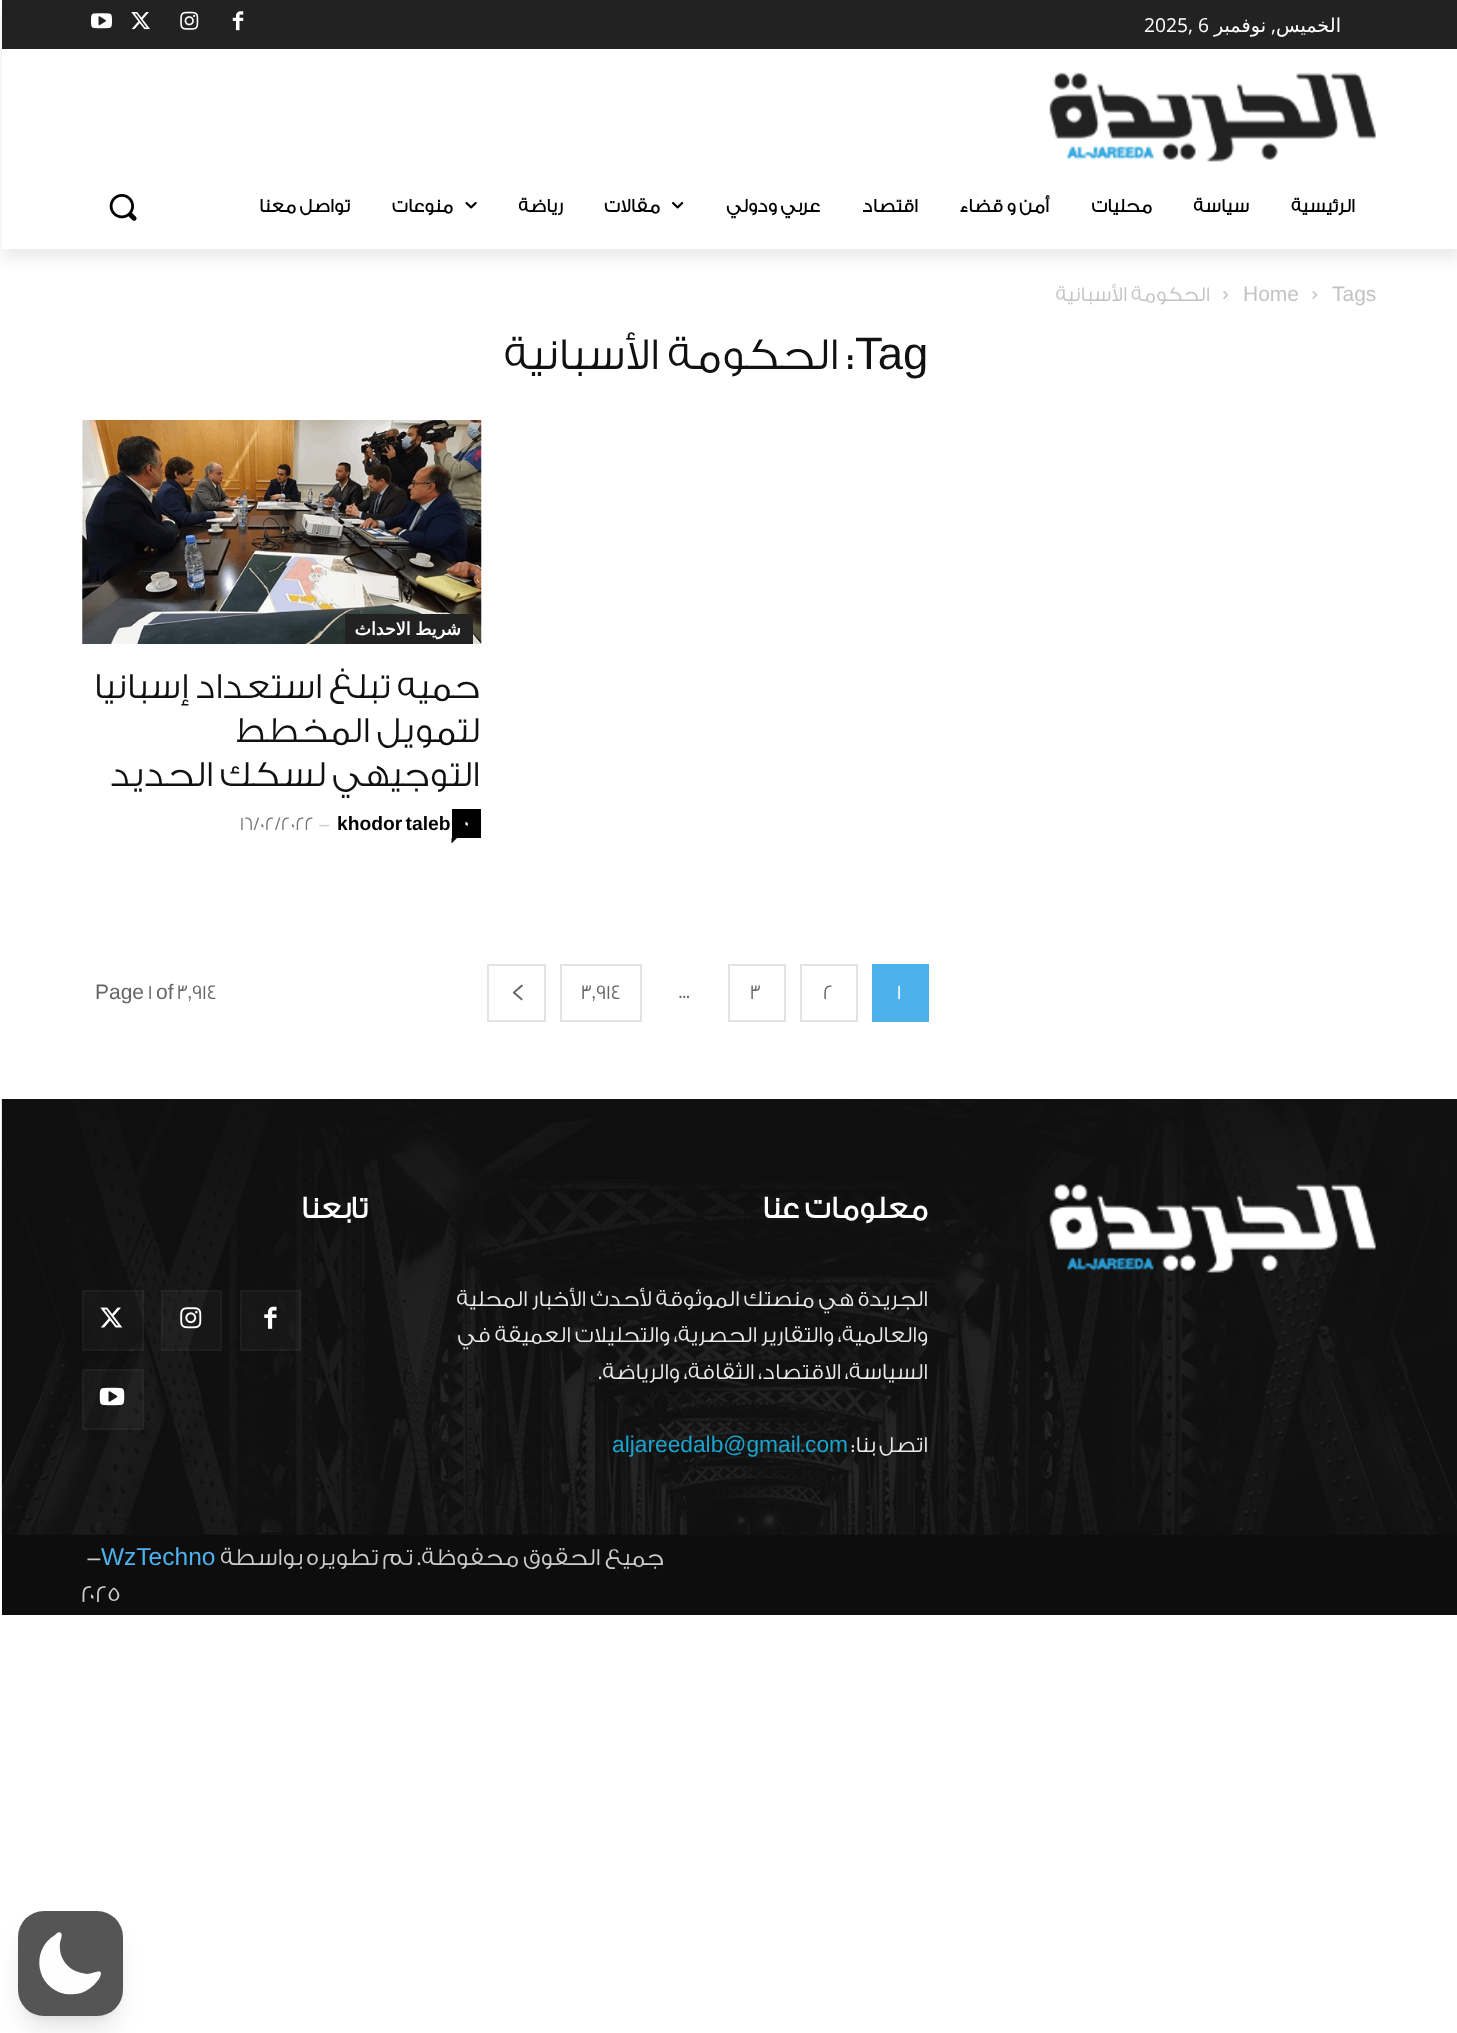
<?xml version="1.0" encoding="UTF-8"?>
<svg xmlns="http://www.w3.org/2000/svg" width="1457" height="2033">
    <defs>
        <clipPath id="clip1"><path d="M 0 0 H 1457 V 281 H 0 Z M 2 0 H 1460 V 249 H 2 Z" clip-rule="evenodd"/></clipPath>
        <filter id="blur1" x="-50%" y="-200%" width="200%" height="500%"><feGaussianBlur stdDeviation="7"/></filter>
        <filter id="blur2" x="-50%" y="-200%" width="200%" height="500%"><feGaussianBlur stdDeviation="5"/></filter>
        <filter id="blur3" x="-50%" y="-200%" width="200%" height="500%"><feGaussianBlur stdDeviation="13"/></filter>
    </defs>
    <rect width="100%" height="100%" fill="#FFFFFF"/>
    <rect x="2" y="0" width="1455" height="49" fill="#222222"/>
    <image x="232" y="11" width="12" height="20" href="img_01.png"/>
    <image x="180" y="11" width="19" height="19" href="img_02.png"/>
    <image x="131" y="12" width="19" height="18" href="img_03.png"/>
    <image x="91" y="13" width="21" height="16" href="img_04.png"/>
    <image x="1049" y="72" width="327" height="90" href="img_05.png"/>
    <g clip-path="url(#clip1)">
        <rect x="2" y="11" width="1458" height="248" fill="#000000" fill-opacity="0.08" filter="url(#blur1)"/>
    </g>
    <text x="1341" y="32" font-family="DejaVu Sans" font-size="19.25" direction="rtl" fill="#FFFFFF">الخميس</text>
    <text x="1276" y="32" font-family="Open Sans" font-size="19.25" direction="rtl" fill="#FFFFFF">,</text>
    <text x="1266" y="32" font-family="DejaVu Sans" font-size="19.25" direction="rtl" fill="#FFFFFF">نوفمبر</text>
    <text x="1144" y="32" font-family="Open Sans" font-size="19.25" fill="#FFFFFF">2025, 6</text>
    <text x="1355" y="212" font-family="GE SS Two" font-size="19.25" font-weight="700" direction="rtl" fill="#000000">الرئيسية</text>
    <text x="1249" y="212" font-family="GE SS Two" font-size="19.25" font-weight="700" direction="rtl" fill="#000000">سياسة</text>
    <text x="1152" y="212" font-family="GE SS Two" font-size="19.25" font-weight="700" direction="rtl" fill="#000000">محليات</text>
    <text x="1049" y="212" font-family="GE SS Two" font-size="19.25" font-weight="700" direction="rtl" fill="#000000">أمن و قضاء</text>
    <text x="918" y="212" font-family="GE SS Two" font-size="19.25" font-weight="700" direction="rtl" fill="#000000">اقتصاد</text>
    <text x="820" y="212" font-family="GE SS Two" font-size="19.25" font-weight="700" direction="rtl" fill="#000000">عربي ودولي</text>
    <image x="672" y="201" width="12" height="8" href="img_06.png"/>
    <text x="660" y="212" font-family="GE SS Two" font-size="19.25" font-weight="700" direction="rtl" fill="#000000">مقالات</text>
    <text x="563" y="212" font-family="GE SS Two" font-size="19.25" font-weight="700" direction="rtl" fill="#000000">رياضة</text>
    <image x="465" y="201" width="12" height="8" href="img_07.png"/>
    <text x="453" y="212" font-family="GE SS Two" font-size="19.25" font-weight="700" direction="rtl" fill="#000000">منوعات</text>
    <text x="350" y="212" font-family="GE SS Two" font-size="19.25" font-weight="700" direction="rtl" fill="#000000">تواصل معنا</text>
    <image x="109" y="194" width="28" height="27" href="img_08.png"/>
    <text x="1332" y="301" font-family="Liberation Sans" font-size="21" fill="#C3C3C3">Tags</text>
    <image x="1312" y="291" width="6" height="8" href="img_09.png"/>
    <text x="1243" y="301" font-family="Liberation Sans" font-size="21" fill="#C3C3C3">Home</text>
    <image x="1223" y="291" width="5" height="8" href="img_10.png"/>
    <text x="1210" y="301" font-family="GE SS Two" font-size="21" font-weight="300" direction="rtl" fill="#C3C3C3">الحكومة الأسبانية</text>
    <text x="855" y="369" font-family="Liberation Sans" font-size="45.5" fill="#111111">Tag</text>
    <text x="855" y="369" font-family="GE SS Two" font-size="45.5" font-weight="300" direction="rtl" fill="#111111">: الحكومة الأسبانية</text>
    <image x="82" y="420" width="400" height="224" href="img_11.png"/>
    <rect x="345" y="614" width="128" height="30" fill="#222222"/>
    <text x="461" y="635" word-spacing="-1" font-family="DejaVu Sans" font-size="17.5" font-weight="700" direction="rtl" fill="#FFFFFF">شريط الاحداث</text>
    <text font-family="GE SS Two" font-size="36.75" font-weight="300" direction="rtl" fill="#111111">
        <tspan x="480" y="698">حميه تبلغ استعداد إسبانيا</tspan>
        <tspan x="480" y="742">لتمويل المخطط</tspan>
        <tspan x="480" y="786">التوجيهي لسكك الحديد</tspan>
    </text>
    <rect x="452" y="809" width="29" height="29" fill="#000000"/>
    <text x="464" y="828" font-family="GE SS Two" font-size="17.5" font-weight="700" fill="#FFFFFF">0</text>
    <path d="M 451.5 838 H 457 L 451.5 843.5 Z" fill="#000000"/>
    <text x="337" y="830" word-spacing="-2" font-family="Liberation Sans" font-size="19.25" font-weight="700" fill="#000000">khodor taleb</text>
    <text x="318" y="830" font-family="GE SS Two" font-size="19.25" font-weight="300" fill="#CCCCCC">-</text>
    <text x="240" y="830" font-family="GE SS Two" font-size="19.25" font-weight="300" fill="#767676">16/02/2022</text>
    <rect x="872" y="964" width="57" height="58" fill="#4DB2EC"/>
    <text x="897" y="999" font-family="GE SS Two" font-size="21" font-weight="300" fill="#FFFFFF">1</text>
    <rect x="801" y="965" width="56" height="56" fill="none" stroke="#E3E3E3" stroke-width="2"/>
    <text x="823" y="999" font-family="GE SS Two" font-size="21" font-weight="300" fill="#666666">2</text>
    <rect x="729" y="965" width="56" height="56" fill="none" stroke="#E3E3E3" stroke-width="2"/>
    <text x="750" y="999" font-family="GE SS Two" font-size="21" font-weight="300" fill="#666666">3</text>
    <text x="679" y="998" font-family="GE SS Two" font-size="21" font-weight="300" fill="#666666">...</text>
    <rect x="561" y="965" width="80" height="56" fill="none" stroke="#E3E3E3" stroke-width="2"/>
    <text x="581" y="999" font-family="GE SS Two" font-size="21" font-weight="300" fill="#666666">3٬914</text>
    <rect x="488" y="965" width="57" height="56" fill="none" stroke="#E3E3E3" stroke-width="2"/>
    <image x="512" y="984" width="11" height="17" href="img_12.png"/>
    <text x="177" y="999" font-family="GE SS Two" font-size="21" font-weight="300" fill="#666666">3٬914</text>
    <text x="156" y="999" font-family="Liberation Sans" font-size="21" fill="#666666">of</text>
    <text x="148" y="999" font-family="GE SS Two" font-size="21" font-weight="300" fill="#666666">1</text>
    <text x="95" y="999" font-family="Liberation Sans" font-size="21" fill="#666666">Page</text>
    <rect x="2" y="1099" width="1455" height="436" fill="#111111"/>
    <image x="1" y="1099" width="1456" height="436" href="img_13.png"/>
    <image x="1049" y="1184" width="327" height="89" href="img_14.png"/>
    <text x="928" y="1218" font-family="GE SS Two" font-size="31.5" font-weight="700" direction="rtl" fill="#FFFFFF">معلومات عنا</text>
    <text font-family="GE SS Two" font-size="22.75" font-weight="300" direction="rtl" fill="#EAEAEA">
        <tspan x="928" y="1306">الجريدة هي منصتك الموثوقة لأحدث الأخبار المحلية</tspan>
        <tspan x="928" y="1342">والعالمية، والتقارير الحصرية، والتحليلات العميقة في</tspan>
        <tspan x="928" y="1379">السياسة، الاقتصاد، الثقافة، والرياضة.</tspan>
    </text>
    <text x="928" y="1452" font-family="GE SS Two" font-size="22.75" font-weight="300" direction="rtl" fill="#EAEAEA">اتصل بنا:</text>
    <text x="805" y="1452" font-family="Liberation Sans" font-size="22.75" fill="#1AA4CE">com</text>
    <text x="801" y="1452" font-family="GE SS Two" font-size="22.75" font-weight="300" fill="#1AA4CE">.</text>
    <text x="612" y="1452" font-family="Liberation Sans" font-size="22.75" fill="#1AA4CE">aljareedalb@gmail</text>
    <text x="368" y="1218" font-family="GE SS Two" font-size="31.5" font-weight="700" direction="rtl" fill="#FFFFFF">تابعنا</text>
    <rect x="240" y="1290" width="61" height="61" fill="#FFFFFF" fill-opacity="0.03"/>
    <rect x="241" y="1291" width="59" height="59" fill="none" stroke="#FFFFFF" stroke-opacity="0.03" stroke-width="2"/>
    <image x="264" y="1306" width="13" height="23" href="img_15.png"/>
    <rect x="161" y="1290" width="61" height="61" fill="#FFFFFF" fill-opacity="0.03"/>
    <rect x="162" y="1291" width="59" height="59" fill="none" stroke="#FFFFFF" stroke-opacity="0.03" stroke-width="2"/>
    <image x="180" y="1307" width="22" height="22" href="img_16.png"/>
    <rect x="82" y="1290" width="62" height="61" fill="#FFFFFF" fill-opacity="0.03"/>
    <rect x="83" y="1291" width="60" height="59" fill="none" stroke="#FFFFFF" stroke-opacity="0.03" stroke-width="2"/>
    <image x="100" y="1307" width="23" height="21" href="img_17.png"/>
    <rect x="82" y="1369" width="62" height="61" fill="#FFFFFF" fill-opacity="0.03"/>
    <rect x="83" y="1370" width="60" height="59" fill="none" stroke="#FFFFFF" stroke-opacity="0.03" stroke-width="2"/>
    <image x="99" y="1387" width="26" height="19" href="img_18.png"/>
    <rect x="2" y="1535" width="1455" height="80" fill="#0D0D0D"/>
    <text x="664" y="1565" font-family="GE SS Two" font-size="24.5" font-weight="300" direction="rtl" fill="#CCCCCC">جميع الحقوق محفوظة. تم تطويره بواسطة</text>
    <text x="101" y="1565" font-family="Liberation Sans" font-size="24.5" fill="#4DB2EC">WzTechno</text>
    <text x="86" y="1565" font-family="GE SS Two" font-size="24.5" font-weight="300" fill="#CCCCCC">-</text>
    <text x="81" y="1602" font-family="GE SS Two" font-size="24.5" font-weight="300" fill="#CCCCCC">٢٠٢٥</text>
    <rect x="25" y="1925" width="91" height="91" rx="19" fill="#000000" fill-opacity="0.1" filter="url(#blur2)"/>
    <rect x="23" y="1934" width="94" height="94" rx="21" fill="#000000" fill-opacity="0.1" filter="url(#blur3)"/>
    <rect x="18" y="1911" width="105" height="105" rx="26" fill="#555555"/>
    <path d="M 61 1933 C 63 1935 60 1941 60 1943 C 59 1952 62 1960 68 1966 C 73 1971 80 1973 87 1974 C 93 1974 106 1966 99 1979 C 96 1983 93 1986 89 1989 C 82 1994 73 1995 65 1994 C 36 1988 30 1950 55 1935 C 56 1934 59 1931 61 1933 Z" fill="#FEFEFE" fill-rule="evenodd"/>
</svg>
